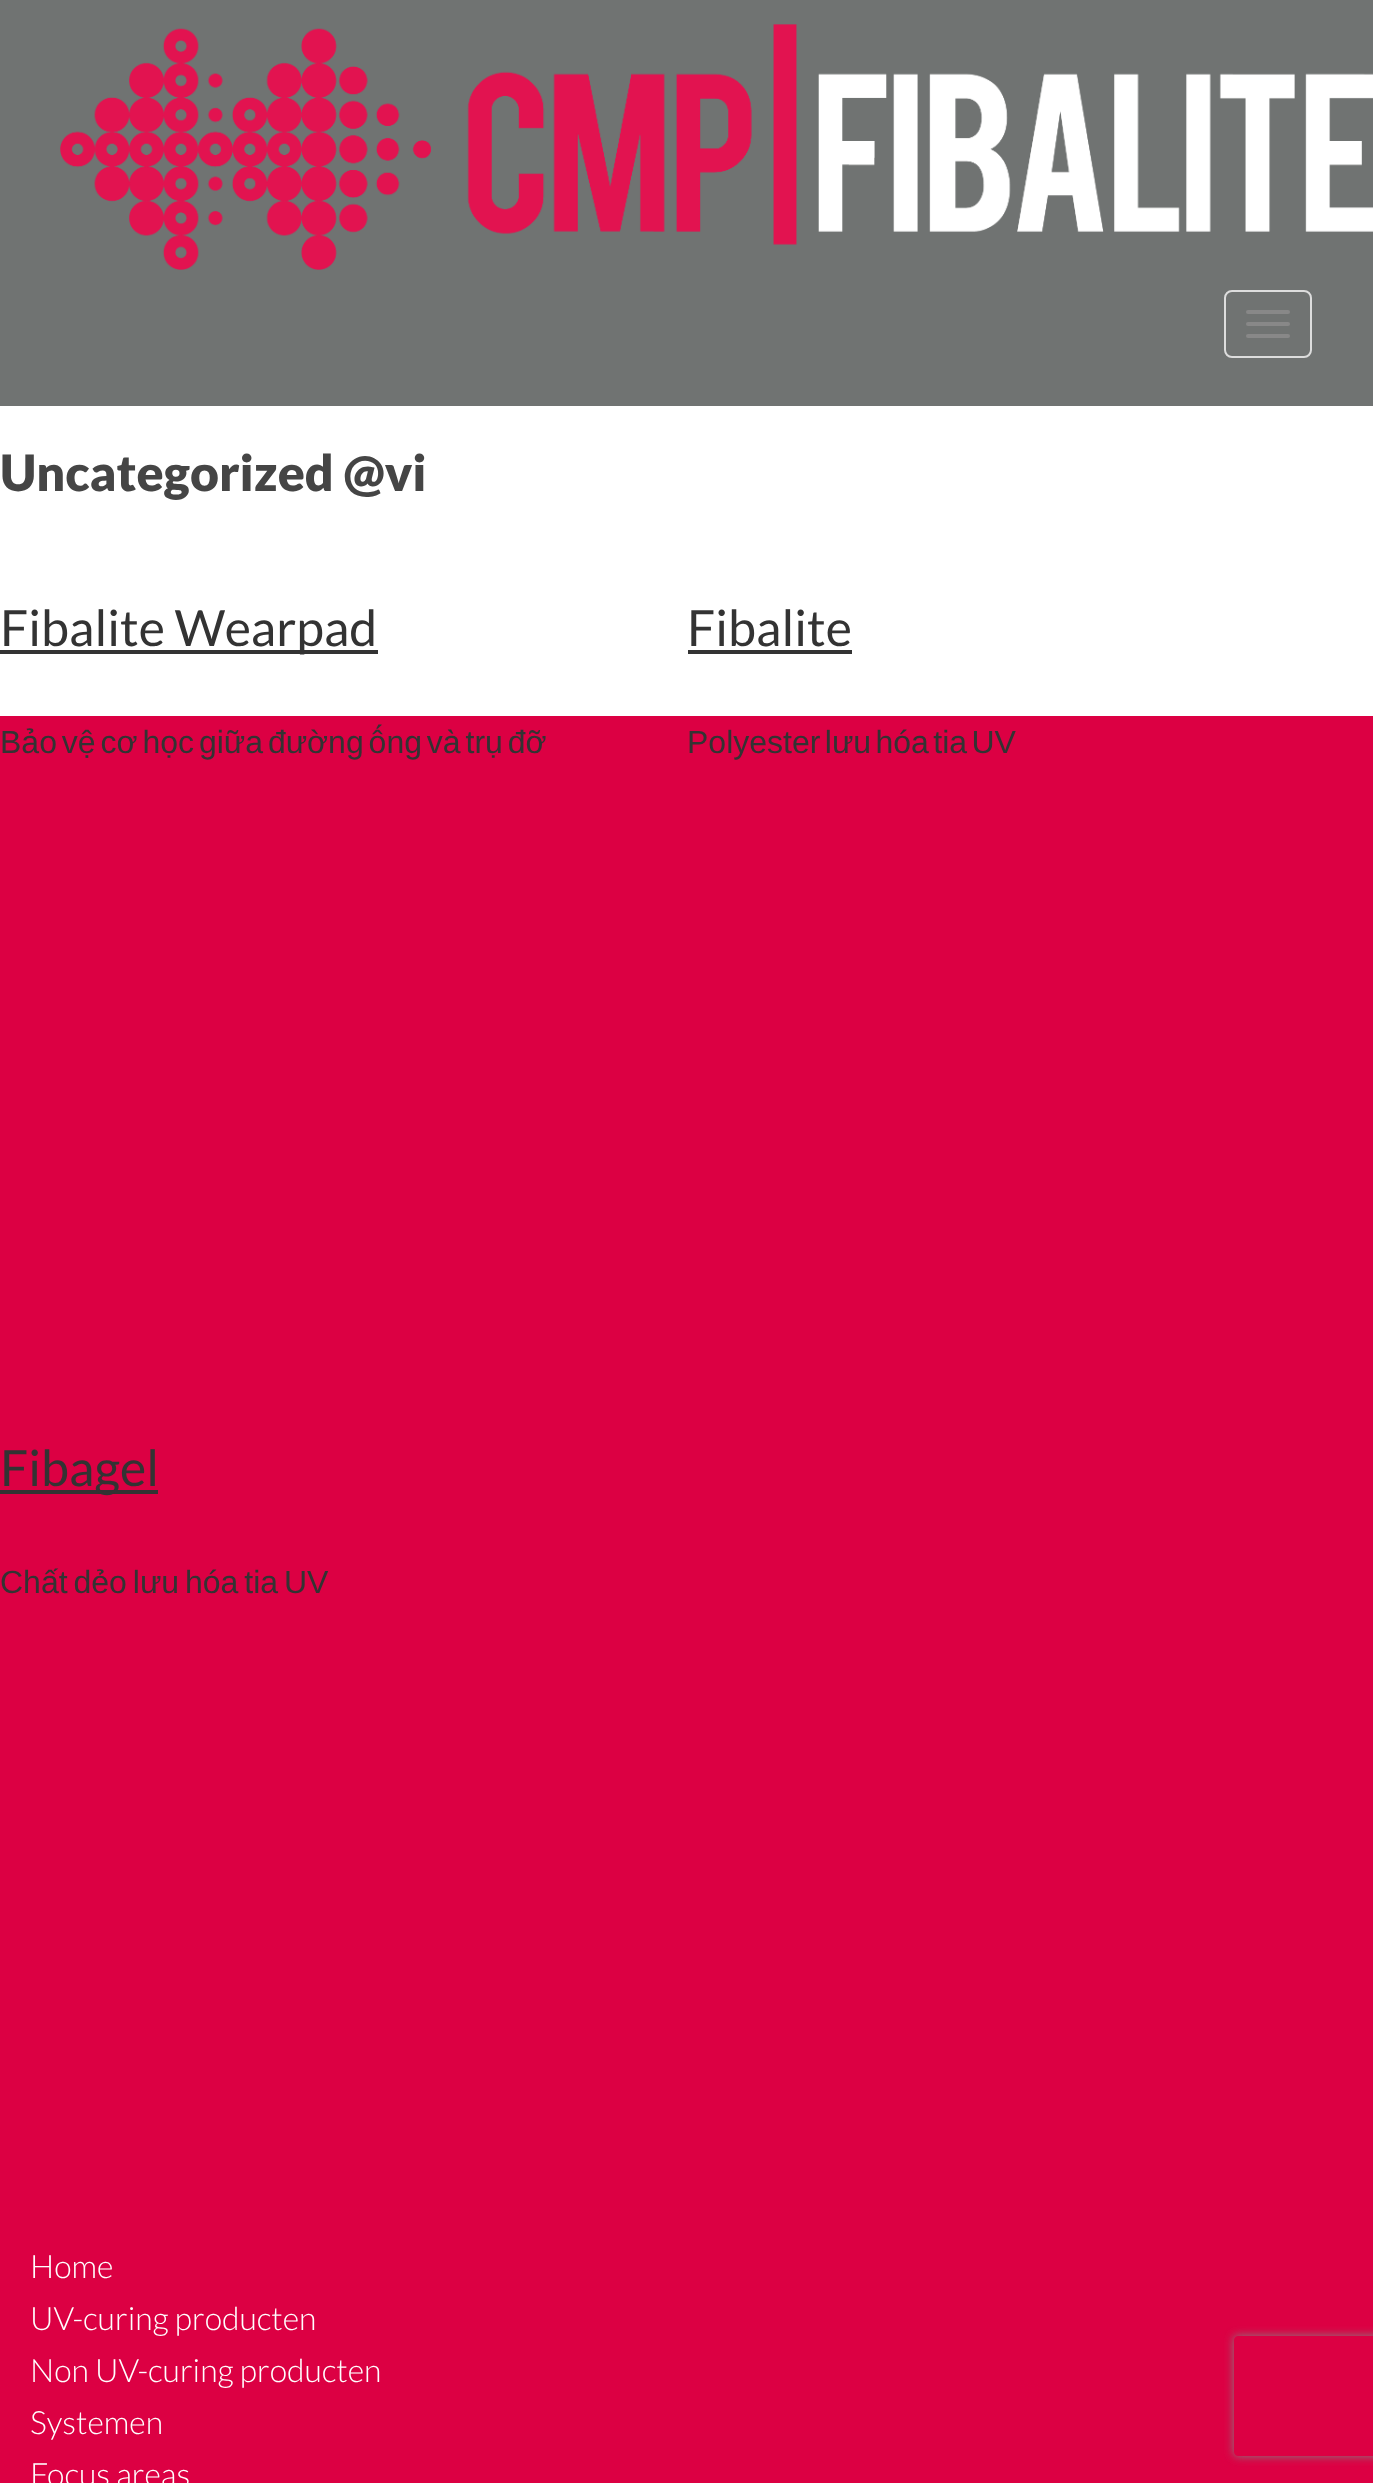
<?xml version="1.0" encoding="UTF-8"?>
<svg xmlns="http://www.w3.org/2000/svg" width="1373" height="2483">
    <defs>
        <clipPath id="clip1"><path d="M 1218 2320 H 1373 V 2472 H 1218 Z M 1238 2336 H 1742 C 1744 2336 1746 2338 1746 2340 V 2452 C 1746 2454 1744 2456 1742 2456 H 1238 C 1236 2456 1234 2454 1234 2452 V 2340 C 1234 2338 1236 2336 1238 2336 Z" clip-rule="evenodd"/></clipPath>
        <filter id="blur1" x="-50%" y="-200%" width="200%" height="500%"><feGaussianBlur stdDeviation="5"/></filter>
    </defs>
    <rect width="100%" height="100%" fill="#FFFFFF"/>
    <rect x="0" y="0" width="1373" height="406" fill="#707372"/>
    <image x="60" y="24" width="1313" height="246" href="img_01.png"/>
    <rect x="1225" y="291" width="86" height="66" rx="7" fill="none" stroke="#DDDDDD" stroke-width="2"/>
    <rect x="1246" y="310" width="44" height="4" rx="2" fill="#888888"/>
    <rect x="1246" y="322" width="44" height="4" rx="2" fill="#888888"/>
    <rect x="1246" y="334" width="44" height="4" rx="2" fill="#888888"/>
    <text x="0" y="491" font-family="Lato" font-size="50" font-weight="900" fill="#454545">Uncategorized @vi</text>
    <rect x="0" y="650" width="378" height="4" fill="#333333"/>
    <text x="0" y="646" font-family="Lato" font-size="50" fill="#333333">Fibalite Wearpad</text>
    <rect x="0" y="716" width="1373" height="1767" fill="#DC0043"/>
    <text x="0" y="753" word-spacing="-4" font-family="Liberation Sans" font-size="32" fill="#333333">Bảo vệ cơ học giữa đường ống và trụ đỡ</text>
    <text x="687" y="646" font-family="Lato" font-size="50" fill="#333333">Fibalite</text>
    <rect x="688" y="650" width="164" height="4" fill="#333333"/>
    <text x="687" y="753" word-spacing="-4.5" font-family="Liberation Sans" font-size="32" fill="#333333">Polyester lưu hóa tia UV</text>
    <rect x="0" y="1490" width="158" height="4" fill="#333333"/>
    <text x="0" y="1486" font-family="Lato" font-size="50" fill="#333333">Fibagel</text>
    <text x="0" y="1593" word-spacing="-3" font-family="Liberation Sans" font-size="32" fill="#333333">Chất dẻo lưu hóa tia UV</text>
    <text font-family="Lato" font-size="32" font-weight="300" fill="#FFFFFF">
        <tspan x="30" y="2278">Home</tspan>
        <tspan x="30" y="2330">UV-curing producten</tspan>
        <tspan x="30" y="2382">Non UV-curing producten</tspan>
        <tspan x="30" y="2434">Systemen</tspan>
        <tspan x="30" y="2486">Focus areas</tspan>
    </text>
    <g clip-path="url(#clip1)">
        <rect x="1234" y="2336" width="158" height="120" rx="4" fill="#808080" filter="url(#blur1)"/>
    </g>
</svg>
